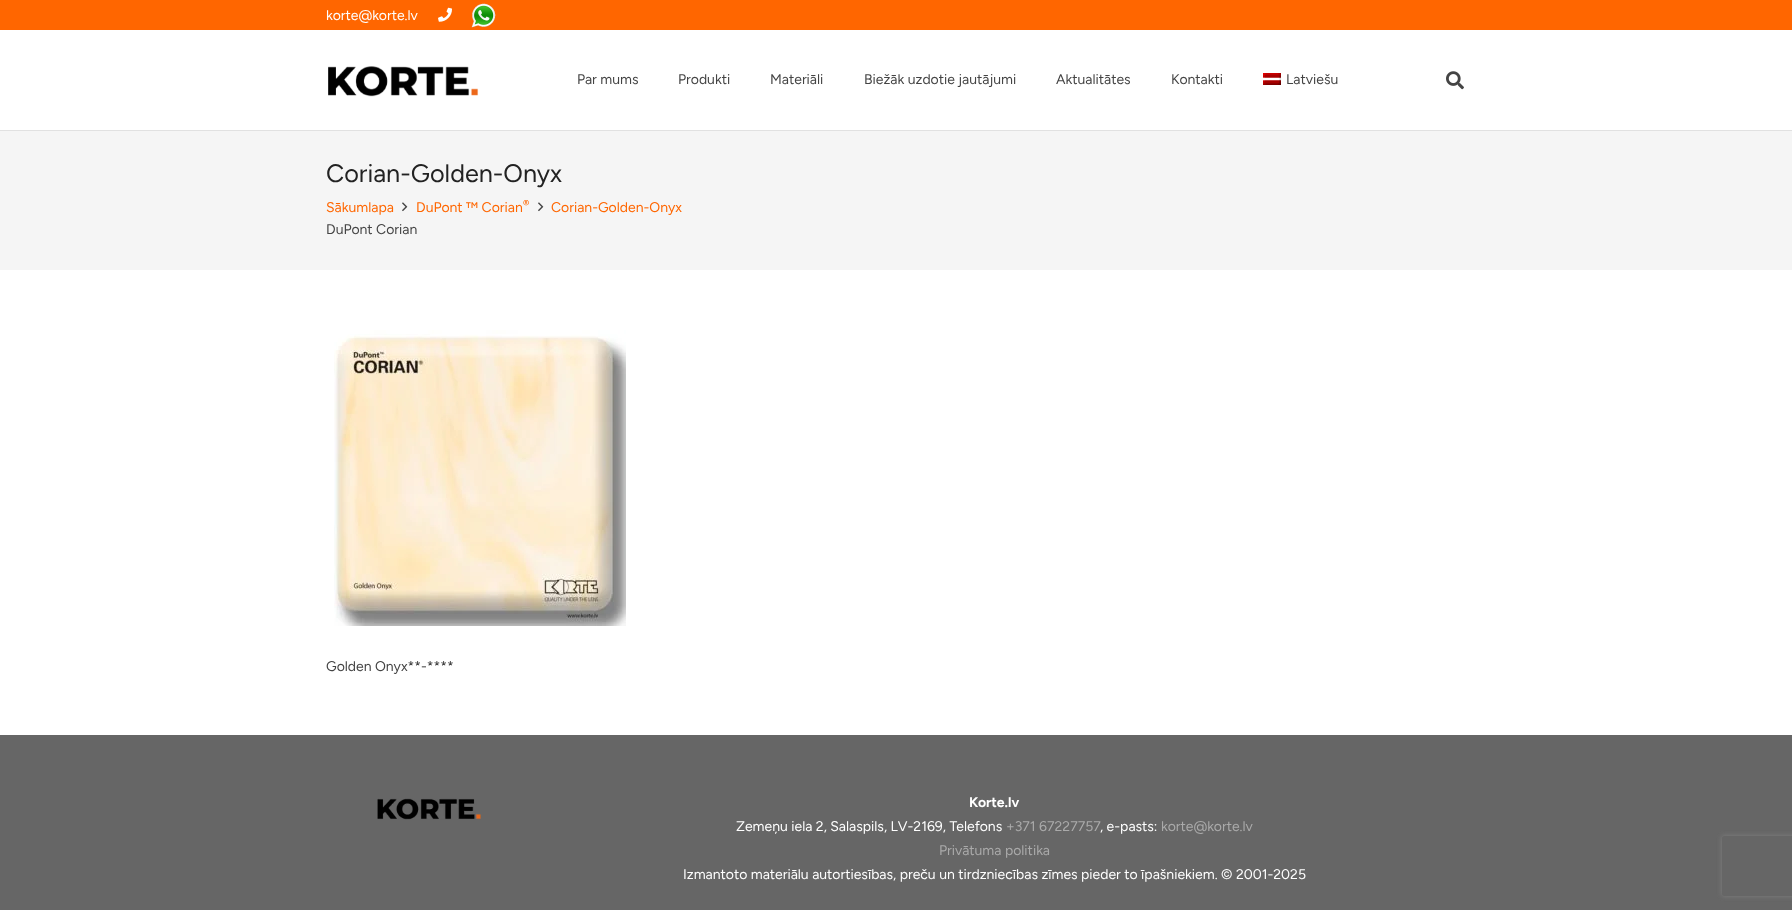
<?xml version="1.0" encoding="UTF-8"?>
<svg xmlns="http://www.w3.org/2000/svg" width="1792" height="910">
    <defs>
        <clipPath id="clip1"><path d="M 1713 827 H 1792 V 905 H 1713 Z M 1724 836 H 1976 C 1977 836 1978 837 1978 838 V 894 C 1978 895 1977 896 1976 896 H 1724 C 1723 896 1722 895 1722 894 V 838 C 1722 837 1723 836 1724 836 Z" clip-rule="evenodd"/></clipPath>
        <filter id="blur1" x="-50%" y="-200%" width="200%" height="500%"><feGaussianBlur stdDeviation="2.5"/></filter>
    </defs>
    <rect width="100%" height="100%" fill="#FFFFFF"/>
    <rect x="0" y="0" width="1792" height="30" fill="#FF6600"/>
    <text x="326" y="20" font-family="Figtree" font-size="14" fill="#FFFFFF">korte@korte.lv</text>
    <image x="438" y="7" width="14" height="15" href="img_01.png"/>
    <image x="471" y="3" width="25" height="25" href="img_02.png"/>
    <rect x="0" y="130" width="1792" height="1" fill="#E1E1E1"/>
    <image x="328" y="66" width="151" height="31" href="img_03.png"/>
    <text x="577" y="84" font-family="Figtree" font-size="14" fill="#444444">Par mums</text>
    <text x="678" y="84" font-family="Figtree" font-size="14" fill="#444444">Produkti</text>
    <text x="770" y="84" font-family="Figtree" font-size="14" fill="#444444">Materiāli</text>
    <text x="864" y="84" font-family="Figtree" font-size="14" fill="#444444">Biežāk uzdotie jautājumi</text>
    <text x="1056" y="84" font-family="Figtree" font-size="14" fill="#444444">Aktualitātes</text>
    <text x="1171" y="84" font-family="Figtree" font-size="14" fill="#444444">Kontakti</text>
    <image x="1263" y="73" width="18" height="12" href="img_04.png"/>
    <text x="1286" y="84" font-family="Figtree" font-size="14" fill="#444444">Latviešu</text>
    <image x="1446" y="71" width="18" height="19" href="img_05.png"/>
    <rect x="0" y="131" width="1792" height="139" fill="#F5F5F5"/>
    <text x="326" y="182" font-family="Figtree" font-size="25.25" fill="#222222">Corian-Golden-Onyx</text>
    <text x="326" y="212" font-family="Figtree" font-size="14" fill="#FF6600">Sākumlapa</text>
    <image x="402" y="202" width="6" height="10" href="img_06.png"/>
    <text x="416" y="212" font-family="Figtree" font-size="14" fill="#FF6600">DuPont ™ Corian</text>
    <text x="523" y="207" font-family="Figtree" font-size="10" fill="#FF6600">®</text>
    <image x="538" y="202" width="6" height="10" href="img_06.png"/>
    <text x="551" y="212" font-family="Figtree" font-size="14" fill="#FF6600">Corian-Golden-Onyx</text>
    <text x="326" y="234" font-family="Figtree" font-size="14" fill="#444444">DuPont Corian</text>
    <image x="334" y="330" width="292" height="296" href="img_07.png"/>
    <text x="326" y="671" font-family="Figtree" font-size="14" fill="#444444">Golden Onyx**-****</text>
    <rect x="0" y="735" width="1792" height="175" fill="#666666"/>
    <image x="377" y="798" width="104" height="22" href="img_08.png"/>
    <text x="969" y="807" font-family="Figtree" font-size="14" font-weight="700" fill="#FFFFFF">Korte.lv</text>
    <text x="736" y="831" font-family="Figtree" font-size="14" fill="#FFFFFF">Zemeņu iela 2, Salaspils, LV-2169, Telefons</text>
    <text x="1006" y="831" font-family="Figtree" font-size="14" fill="#AAAAAA">+371 67227757</text>
    <text x="1100" y="831" font-family="Figtree" font-size="14" fill="#FFFFFF">, e-pasts:</text>
    <text x="1161" y="831" font-family="Figtree" font-size="14" fill="#AAAAAA">korte@korte.lv</text>
    <text x="939" y="855" font-family="Figtree" font-size="14" fill="#AAAAAA">Privātuma politika</text>
    <text x="683" y="879" font-family="Figtree" font-size="14" fill="#FFFFFF">Izmantoto materiālu autortiesības, preču un tirdzniecības zīmes pieder to īpašniekiem. © 2001-2025</text>
    <g clip-path="url(#clip1)">
        <rect x="1722" y="836" width="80" height="60" rx="2" fill="#808080" filter="url(#blur1)"/>
    </g>
</svg>
